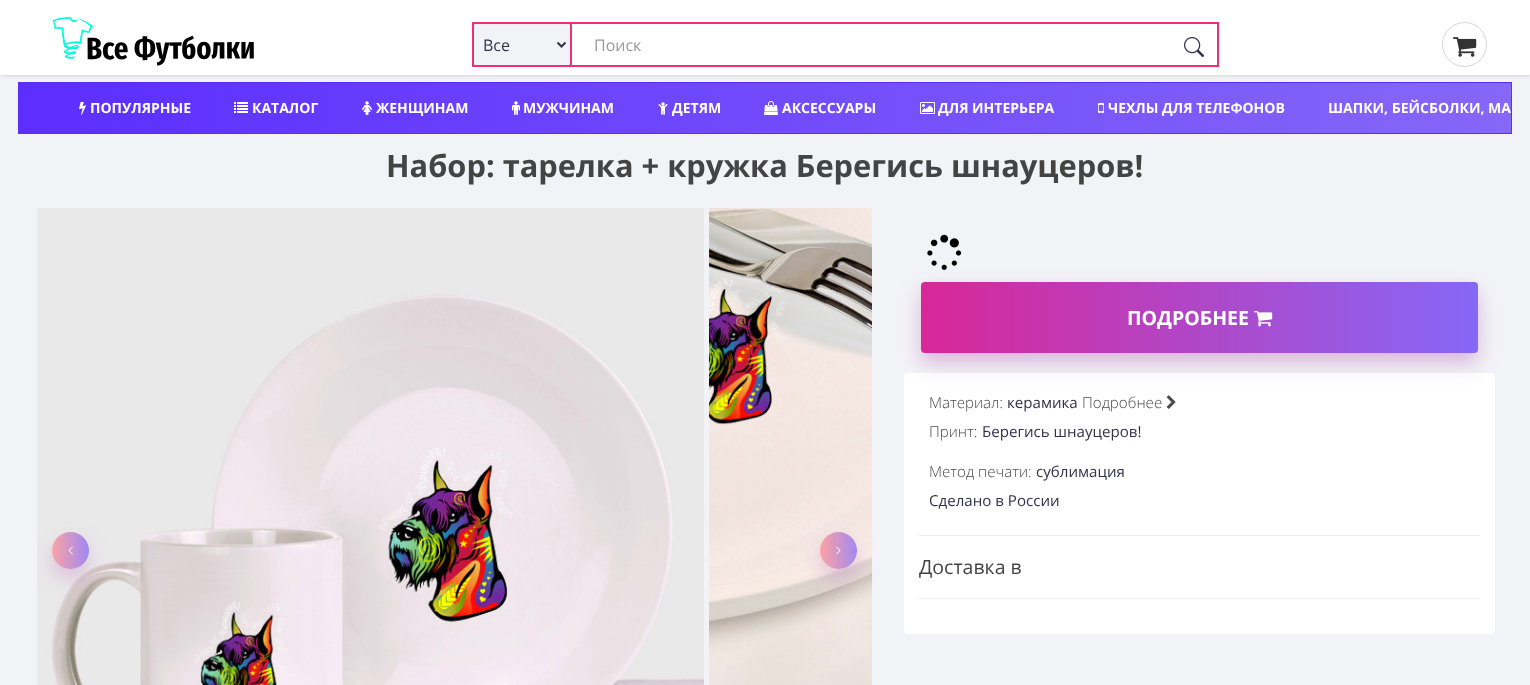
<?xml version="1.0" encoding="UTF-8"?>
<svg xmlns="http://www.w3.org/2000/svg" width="1530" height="685">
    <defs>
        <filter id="blur1" x="-50%" y="-200%" width="200%" height="500%"><feGaussianBlur stdDeviation="1.5"/></filter>
        <linearGradient id="g1" gradientUnits="userSpaceOnUse" x1="19" y1="108" x2="1511" y2="108"><stop offset="0" stop-color="#5B2EFF"/><stop offset="1" stop-color="#8667F7"/></linearGradient>
        <filter id="blur2" x="-50%" y="-200%" width="200%" height="500%"><feGaussianBlur stdDeviation="10"/></filter>
        <linearGradient id="g2" gradientUnits="userSpaceOnUse" x1="52" y1="551" x2="89" y2="551"><stop offset="0" stop-color="#FAA3A4"/><stop offset="1" stop-color="#9F88F4"/></linearGradient>
        <clipPath id="clip1"><path d="M 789 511 H 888 V 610 H 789 Z M 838.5 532 C 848.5 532 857 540.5 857 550.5 C 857 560.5 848.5 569 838.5 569 C 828.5 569 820 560.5 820 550.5 C 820 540.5 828.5 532 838.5 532 Z" clip-rule="evenodd"/></clipPath>
        <linearGradient id="g3" gradientUnits="userSpaceOnUse" x1="820" y1="551" x2="857" y2="551"><stop offset="0" stop-color="#FF8B8D" stop-opacity="0.75"/><stop offset="1" stop-color="#8667F7" stop-opacity="0.75"/></linearGradient>
        <linearGradient id="g4" gradientUnits="userSpaceOnUse" x1="921" y1="318" x2="1478" y2="318"><stop offset="0" stop-color="#D92798"/><stop offset="1" stop-color="#8667F7"/></linearGradient>
    </defs>
    <rect width="100%" height="100%" fill="#F2F3F7"/>
    <rect x="1" y="1" width="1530" height="75" fill="#666666" fill-opacity="0.2" filter="url(#blur1)"/>
    <rect x="0" y="0" width="1530" height="75" fill="#FFFFFF"/>
    <image x="52" y="16" width="202" height="50" href="img_01.png"/>
    <rect x="473" y="23" width="745" height="43" fill="none" stroke="#ED2F77" stroke-width="2"/>
    <rect x="473" y="23" width="98" height="43" rx="2" fill="#F2F3F7" stroke="#ED2F77" stroke-width="2"/>
    <path d="M 557.5 42.5 L 561.5 46.5 L 565.5 42.5" fill="none" stroke="#34314B" stroke-width="2"/>
    <text x="483" y="51" font-family="Open Sans" font-size="16" fill="#34314B">Все</text>
    <text x="594" y="51" font-family="Open Sans" font-size="16" fill="#999999">Поиск</text>
    <image x="1184" y="37" width="20" height="20" href="img_02.png"/>
    <circle cx="1464.5" cy="44.5" r="22" fill="none" stroke="#D6D6D6"/>
    <image x="1453" y="37" width="24" height="20" href="img_03.png"/>
    <rect x="19" y="83" width="1492" height="50" fill="url(#g1)"/>
    <rect x="18.5" y="82.5" width="1493" height="51" fill="none" stroke="#5B2EFF"/>
    <image x="79" y="102" width="7" height="13" href="img_04.png"/>
    <text x="90" y="113" font-family="Open Sans" font-size="14" font-weight="700" fill="#FFFFFF">ПОПУЛЯРНЫЕ</text>
    <image x="234" y="102" width="14" height="11" href="img_05.png"/>
    <text x="252" y="113" font-family="Open Sans" font-size="14" font-weight="700" fill="#FFFFFF">КАТАЛОГ</text>
    <image x="362" y="101" width="10" height="14" href="img_06.png"/>
    <text x="376" y="113" font-family="Open Sans" font-size="14" font-weight="700" fill="#FFFFFF">ЖЕНЩИНАМ</text>
    <image x="512" y="101" width="8" height="14" href="img_07.png"/>
    <text x="523" y="113" font-family="Open Sans" font-size="14" font-weight="700" fill="#FFFFFF">МУЖЧИНАМ</text>
    <image x="658" y="102" width="10" height="13" href="img_08.png"/>
    <text x="672" y="113" font-family="Open Sans" font-size="14" font-weight="700" fill="#FFFFFF">ДЕТЯМ</text>
    <image x="764" y="101" width="14" height="14" href="img_09.png"/>
    <text x="782" y="113" font-family="Open Sans" font-size="14" font-weight="700" fill="#FFFFFF">АКСЕССУАРЫ</text>
    <image x="920" y="102" width="15" height="12" href="img_10.png"/>
    <text x="938" y="113" font-family="Open Sans" font-size="14" font-weight="700" fill="#FFFFFF">ДЛЯ ИНТЕРЬЕРА</text>
    <image x="1098" y="103" width="6" height="10" href="img_11.png"/>
    <text x="1108" y="113" font-family="Open Sans" font-size="14" font-weight="700" fill="#FFFFFF">ЧЕХЛЫ ДЛЯ ТЕЛЕФОНОВ</text>
    <text x="1328" y="113" font-family="Open Sans" font-size="14" font-weight="700" fill="#FFFFFF">ШАПКИ, БЕЙСБОЛКИ, МА</text>
    <text x="386" y="177" font-family="Open Sans" font-size="30.8" font-weight="700" fill="#444444">Набор: тарелка + кружка Берегись шнауцеров!</text>
    <image x="37" y="208" width="667" height="477" href="img_12.png"/>
    <image x="709" y="208" width="163" height="477" href="img_13.png"/>
    <rect x="52" y="542" width="37" height="37" rx="18.5" fill="#C479C2" fill-opacity="0.38" filter="url(#blur2)"/>
    <circle cx="70.5" cy="550.5" r="18.5" fill="url(#g2)"/>
    <image x="68" y="546" width="5" height="9" href="img_14.png"/>
    <g clip-path="url(#clip1)">
        <rect x="820" y="542" width="37" height="37" rx="18.5" fill="#C479C2" fill-opacity="0.38" filter="url(#blur2)"/>
    </g>
    <circle cx="838.5" cy="550.5" r="18.5" fill="url(#g3)"/>
    <image x="836" y="546" width="5" height="9" href="img_15.png"/>
    <image x="927" y="234" width="35" height="36" href="img_16.png"/>
    <rect x="904" y="373" width="591" height="261" rx="4" fill="#FFFFFF"/>
    <rect x="921" y="292" width="557" height="71" rx="4" fill="#C479C2" fill-opacity="0.5" filter="url(#blur2)"/>
    <rect x="921" y="282" width="557" height="71" rx="4" fill="url(#g4)"/>
    <text x="1127" y="325" font-family="Open Sans" font-size="19.5" font-weight="700" fill="#FFFFFF">ПОДРОБНЕЕ</text>
    <image x="1254" y="311" width="19" height="16" href="img_17.png"/>
    <text x="929" y="408" font-family="Open Sans" font-size="15.1" font-weight="300" fill="#4C4C4C">Материал:</text>
    <text x="1007" y="408" font-family="Open Sans" font-size="15.1" fill="#34314B">керамика</text>
    <text x="1082" y="408" font-family="Open Sans" font-size="15.1" font-weight="300" fill="#4C4C4C">Подробнее</text>
    <image x="1166" y="395" width="10" height="14" href="img_18.png"/>
    <text x="929" y="437" font-family="Open Sans" font-size="15.1" font-weight="300" fill="#4C4C4C">Принт:</text>
    <text x="982" y="437" font-family="Open Sans" font-size="15.1" fill="#34314B">Берегись шнауцеров!</text>
    <text x="929" y="477" font-family="Open Sans" font-size="15.1" font-weight="300" fill="#4C4C4C">Метод печати:</text>
    <text x="1036" y="477" font-family="Open Sans" font-size="15.1" fill="#34314B">сублимация</text>
    <text x="929" y="506" font-family="Open Sans" font-size="15.1" fill="#34314B">Сделано в России</text>
    <rect x="919" y="535" width="561" height="1" fill="#EEEEEE"/>
    <text x="919" y="574" font-family="Open Sans" font-size="19.5" fill="#444444">Доставка в</text>
    <rect x="919" y="598" width="561" height="1" fill="#EEEEEE"/>
</svg>
